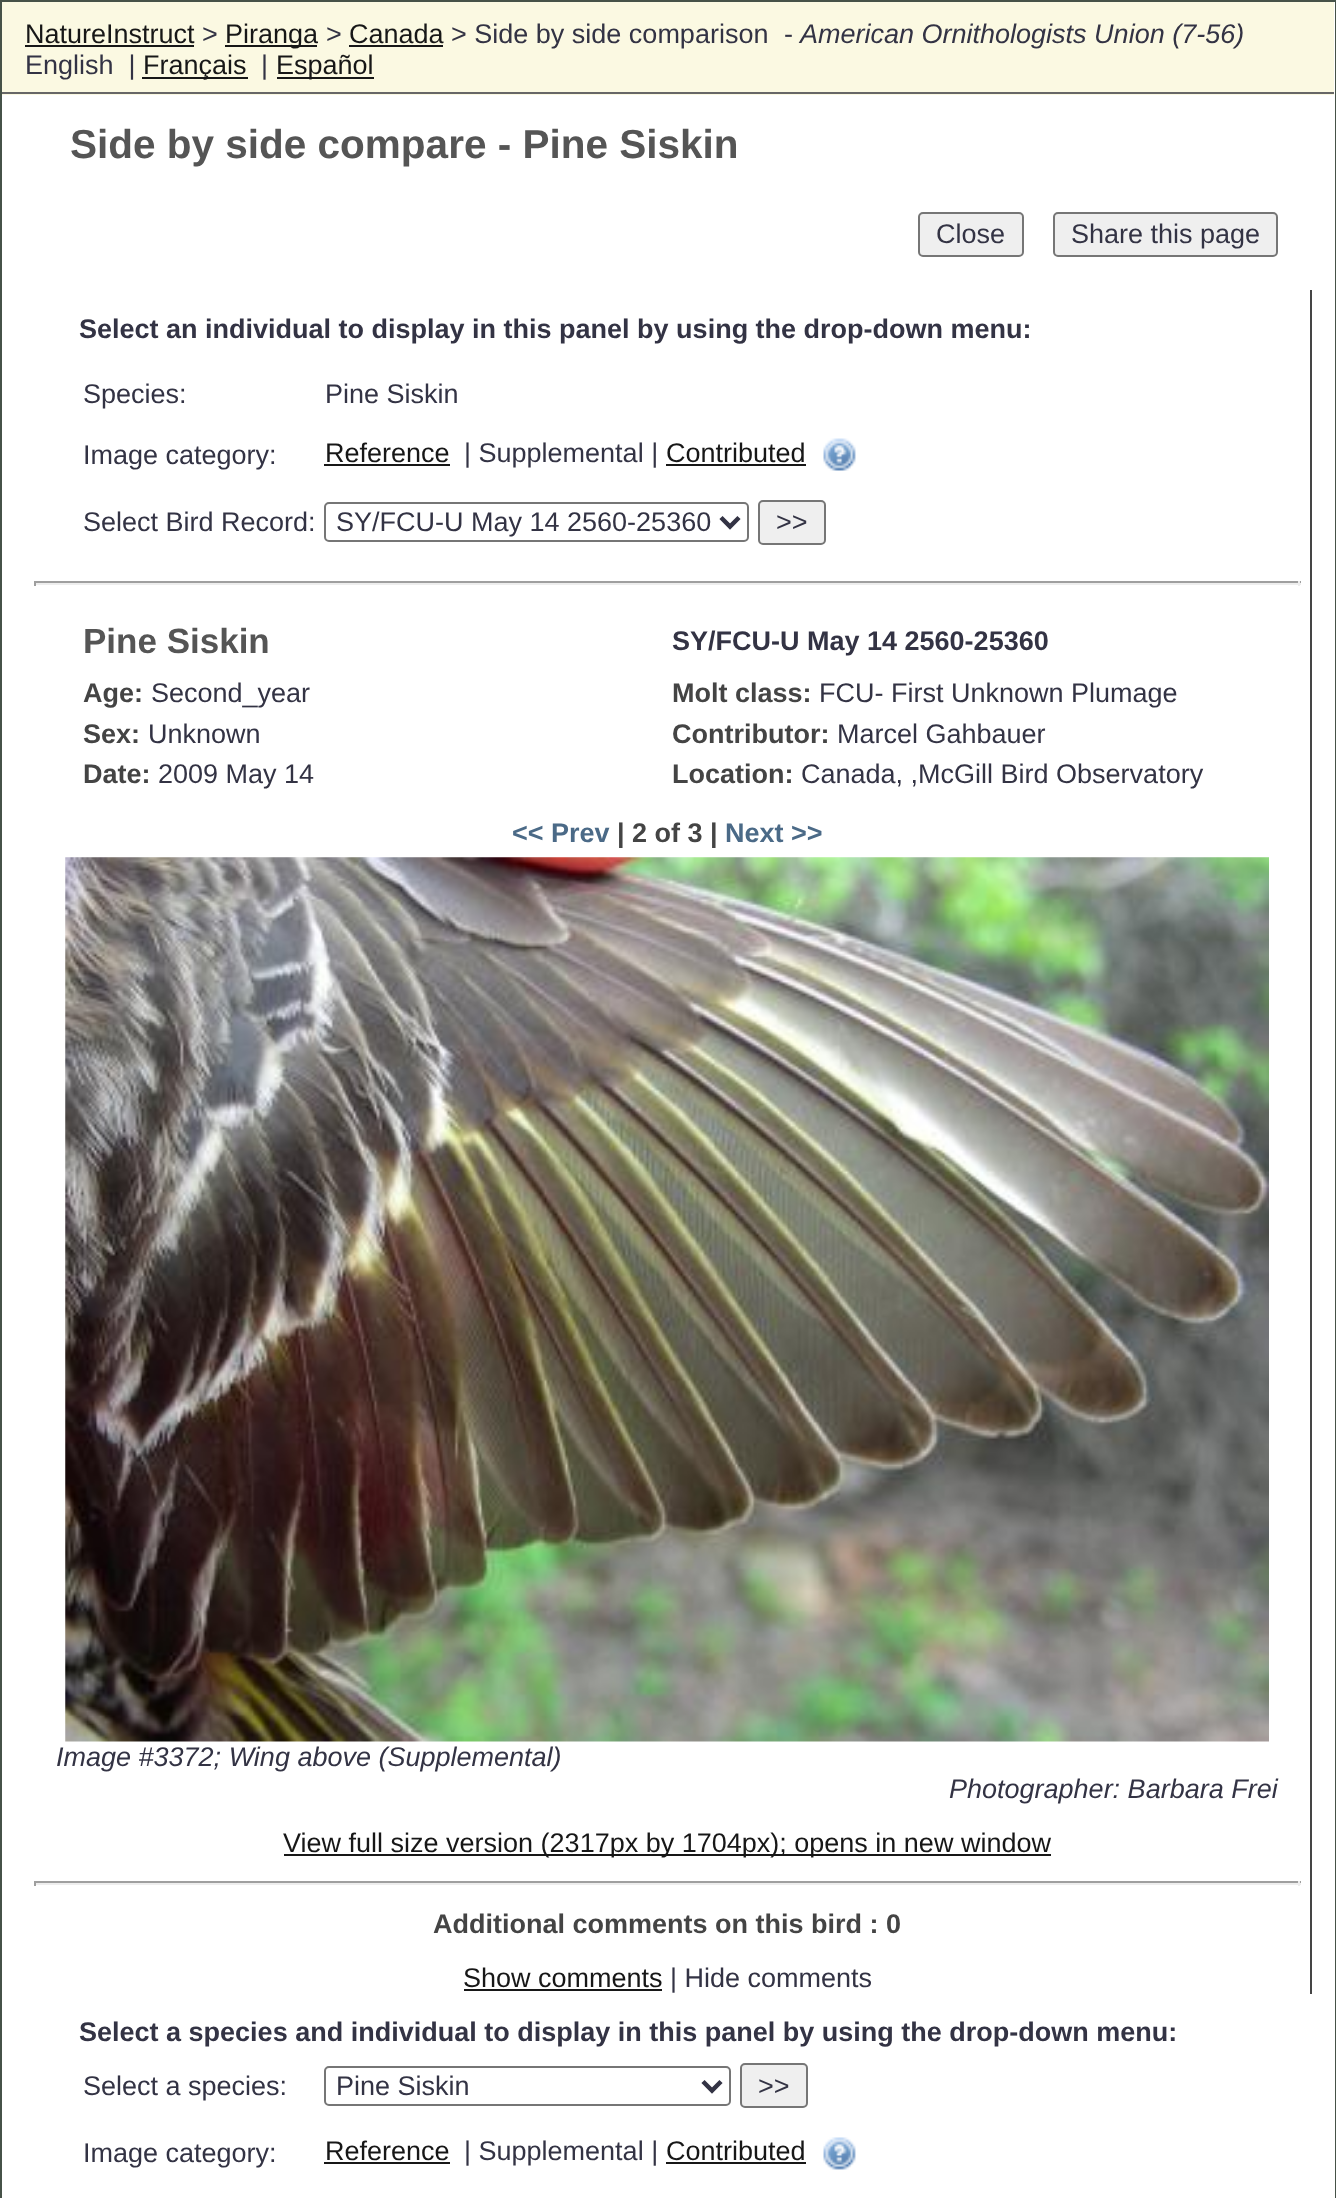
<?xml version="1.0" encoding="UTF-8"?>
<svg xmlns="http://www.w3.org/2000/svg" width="1336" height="2198">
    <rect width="100%" height="100%" fill="#FFFFFF"/>
    <rect x="1" y="1" width="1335" height="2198" fill="none" stroke="#465248" stroke-width="2"/>
    <rect x="2" y="2" width="1332" height="93" fill="#FBF9E2"/>
    <rect x="2" y="92" width="1332" height="2" fill="#676767"/>
    <text x="25" y="43" font-family="Liberation Sans" font-size="27" fill="#171717">NatureInstruct</text>
    <rect x="25" y="45" width="169" height="2" fill="#171717"/>
    <text x="202" y="43" font-family="Liberation Sans" font-size="27" fill="#333344">&gt;</text>
    <rect x="225" y="45" width="92" height="2" fill="#171717"/>
    <text x="225" y="43" font-family="Liberation Sans" font-size="27" fill="#171717">Piranga</text>
    <text x="326" y="43" font-family="Liberation Sans" font-size="27" fill="#333344">&gt;</text>
    <text x="349" y="43" font-family="Liberation Sans" font-size="27" fill="#171717">Canada</text>
    <rect x="349" y="45" width="94" height="2" fill="#171717"/>
    <text x="451" y="43" font-family="Liberation Sans" font-size="27" fill="#333344">&gt; Side by side comparison</text>
    <text x="784" y="43" font-family="Liberation Sans" font-size="27" fill="#333344">-</text>
    <text x="800" y="43" font-family="Liberation Sans" font-size="27" font-style="italic" fill="#333344">American Ornithologists Union (7-56)</text>
    <text x="25" y="74" font-family="Liberation Sans" font-size="27" fill="#333344" xml:space="preserve">English  |</text>
    <rect x="142" y="77" width="106" height="2" fill="#171717"/>
    <text x="143" y="74" font-family="Liberation Sans" font-size="27" fill="#171717">Français</text>
    <text x="261" y="74" font-family="Liberation Sans" font-size="27" fill="#333344">|</text>
    <rect x="277" y="77" width="97" height="2" fill="#171717"/>
    <text x="276" y="74" font-family="Liberation Sans" font-size="27" fill="#171717">Español</text>
    <text x="70" y="158" font-family="Liberation Sans" font-size="40.5" font-weight="700" fill="#555555">Side by side compare - Pine Siskin</text>
    <rect x="919" y="213" width="104" height="43" rx="4" fill="#EFEFEF" stroke="#767676" stroke-width="2"/>
    <text x="936" y="243" font-family="Liberation Sans" font-size="27" fill="#333344">Close</text>
    <rect x="1054" y="213" width="223" height="43" rx="4" fill="#EFEFEF" stroke="#767676" stroke-width="2"/>
    <text x="1071" y="243" font-family="Liberation Sans" font-size="27" fill="#333344">Share this page</text>
    <rect x="1310" y="290" width="2" height="1704" fill="#454545"/>
    <text x="79" y="338" font-family="Liberation Sans" font-size="27" font-weight="700" fill="#333344">Select an individual to display in this panel by using the drop-down menu:</text>
    <text x="83" y="403" font-family="Liberation Sans" font-size="27" fill="#333344">Species:</text>
    <text x="325" y="403" font-family="Liberation Sans" font-size="27" fill="#333344">Pine Siskin</text>
    <text x="83" y="464" font-family="Liberation Sans" font-size="27" fill="#333344">Image category:</text>
    <text x="325" y="462" font-family="Liberation Sans" font-size="27" fill="#171717">Reference</text>
    <rect x="324" y="464" width="126" height="2" fill="#171717"/>
    <text x="464" y="462" font-family="Liberation Sans" font-size="27" fill="#333344">| Supplemental |</text>
    <text x="666" y="462" font-family="Liberation Sans" font-size="27" fill="#171717">Contributed</text>
    <rect x="666" y="464" width="140" height="2" fill="#171717"/>
    <image x="823" y="438" width="33" height="33" href="img_01.png"/>
    <text x="83" y="531" font-family="Liberation Sans" font-size="27" fill="#333344">Select Bird Record:</text>
    <rect x="325" y="503" width="423" height="38" rx="4" fill="none" stroke="#767676" stroke-width="2"/>
    <path d="M 721 517.5 L 730 526.5 L 739 517.5" fill="none" stroke="#333344" stroke-width="4.5"/>
    <text x="336" y="531" font-family="Liberation Sans" font-size="27" fill="#333344">SY/FCU-U May 14 2560-25360</text>
    <rect x="759" y="501" width="66" height="43" rx="4" fill="#EFEFEF" stroke="#767676" stroke-width="2"/>
    <text x="776" y="531" font-family="Liberation Sans" font-size="27" fill="#333344">&gt;&gt;</text>
    <rect x="34" y="581" width="1267" height="2" fill="#9F9F9F"/>
    <rect x="1298" y="581" width="2" height="5" fill="#EEEEEE"/>
    <rect x="34" y="583" width="1267" height="2" fill="#EEEEEE"/>
    <rect x="34" y="581" width="2" height="5" fill="#9F9F9F"/>
    <text x="83" y="653" font-family="Liberation Sans" font-size="35" font-weight="700" fill="#555555">Pine Siskin</text>
    <text x="672" y="650" font-family="Liberation Sans" font-size="27" font-weight="700" fill="#333344">SY/FCU-U May 14 2560-25360</text>
    <text x="83" y="702" font-family="Liberation Sans" font-size="27" font-weight="700" fill="#444444">Age:</text>
    <text x="151" y="702" font-family="Liberation Sans" font-size="27" fill="#333344">Second_year</text>
    <text x="672" y="702" font-family="Liberation Sans" font-size="27" font-weight="700" fill="#444444">Molt class:</text>
    <text x="819" y="702" font-family="Liberation Sans" font-size="27" fill="#333344">FCU- First Unknown Plumage</text>
    <text x="83" y="743" font-family="Liberation Sans" font-size="27" font-weight="700" fill="#444444">Sex:</text>
    <text x="148" y="743" font-family="Liberation Sans" font-size="27" fill="#333344">Unknown</text>
    <text x="672" y="743" font-family="Liberation Sans" font-size="27" font-weight="700" fill="#444444">Contributor:</text>
    <text x="837" y="743" font-family="Liberation Sans" font-size="27" fill="#333344">Marcel Gahbauer</text>
    <text x="83" y="783" font-family="Liberation Sans" font-size="27" font-weight="700" fill="#444444">Date:</text>
    <text x="158" y="783" font-family="Liberation Sans" font-size="27" fill="#333344">2009 May 14</text>
    <text x="672" y="783" font-family="Liberation Sans" font-size="27" font-weight="700" fill="#444444">Location:</text>
    <text x="801" y="783" font-family="Liberation Sans" font-size="27" fill="#333344">Canada, ,McGill Bird Observatory</text>
    <text x="512" y="842" font-family="Liberation Sans" font-size="27" font-weight="700" fill="#4B6A87">&lt;&lt; Prev</text>
    <text x="617" y="842" font-family="Liberation Sans" font-size="27" font-weight="700" fill="#444444">| 2 of 3 |</text>
    <text x="725" y="842" font-family="Liberation Sans" font-size="27" font-weight="700" fill="#4B6A87">Next &gt;&gt;</text>
    <image x="65" y="857" width="1204" height="885" href="img_02.png"/>
    <text x="56" y="1766" font-family="Liberation Sans" font-size="27" font-style="italic" fill="#333344">Image #3372; Wing above (Supplemental)</text>
    <text x="949" y="1798" font-family="Liberation Sans" font-size="27" font-style="italic" fill="#333344">Photographer: Barbara Frei</text>
    <rect x="284" y="1854" width="767" height="2" fill="#171717"/>
    <text x="283" y="1852" font-family="Liberation Sans" font-size="27" fill="#171717">View full size version (2317px by 1704px); opens in new window</text>
    <rect x="34" y="1881" width="1267" height="2" fill="#9F9F9F"/>
    <rect x="1298" y="1881" width="2" height="5" fill="#EEEEEE"/>
    <rect x="34" y="1883" width="1267" height="2" fill="#EEEEEE"/>
    <rect x="34" y="1881" width="2" height="5" fill="#9F9F9F"/>
    <text x="433" y="1933" font-family="Liberation Sans" font-size="27" font-weight="700" fill="#444444">Additional comments on this bird : 0</text>
    <text x="463" y="1987" font-family="Liberation Sans" font-size="27" fill="#171717">Show comments</text>
    <rect x="464" y="1989" width="198" height="2" fill="#171717"/>
    <text x="670" y="1987" font-family="Liberation Sans" font-size="27" fill="#333344">| Hide comments</text>
    <text x="79" y="2041" font-family="Liberation Sans" font-size="27" font-weight="700" fill="#333344">Select a species and individual to display in this panel by using the drop-down menu:</text>
    <text x="83" y="2095" font-family="Liberation Sans" font-size="27" fill="#333344">Select a species:</text>
    <rect x="325" y="2067" width="405" height="38" rx="4" fill="none" stroke="#767676" stroke-width="2"/>
    <path d="M 703 2081.5 L 712 2090.5 L 721 2081.5" fill="none" stroke="#333344" stroke-width="4.5"/>
    <text x="336" y="2095" font-family="Liberation Sans" font-size="27" fill="#333344">Pine Siskin</text>
    <rect x="741" y="2064" width="66" height="43" rx="4" fill="#EFEFEF" stroke="#767676" stroke-width="2"/>
    <text x="758" y="2095" font-family="Liberation Sans" font-size="27" fill="#333344">&gt;&gt;</text>
    <text x="83" y="2162" font-family="Liberation Sans" font-size="27" fill="#333344">Image category:</text>
    <text x="325" y="2160" font-family="Liberation Sans" font-size="27" fill="#171717">Reference</text>
    <rect x="324" y="2162" width="126" height="2" fill="#171717"/>
    <text x="464" y="2160" font-family="Liberation Sans" font-size="27" fill="#333344">| Supplemental |</text>
    <text x="666" y="2160" font-family="Liberation Sans" font-size="27" fill="#171717">Contributed</text>
    <rect x="666" y="2162" width="140" height="2" fill="#171717"/>
    <image x="823" y="2137" width="33" height="33" href="img_03.png"/>
</svg>
